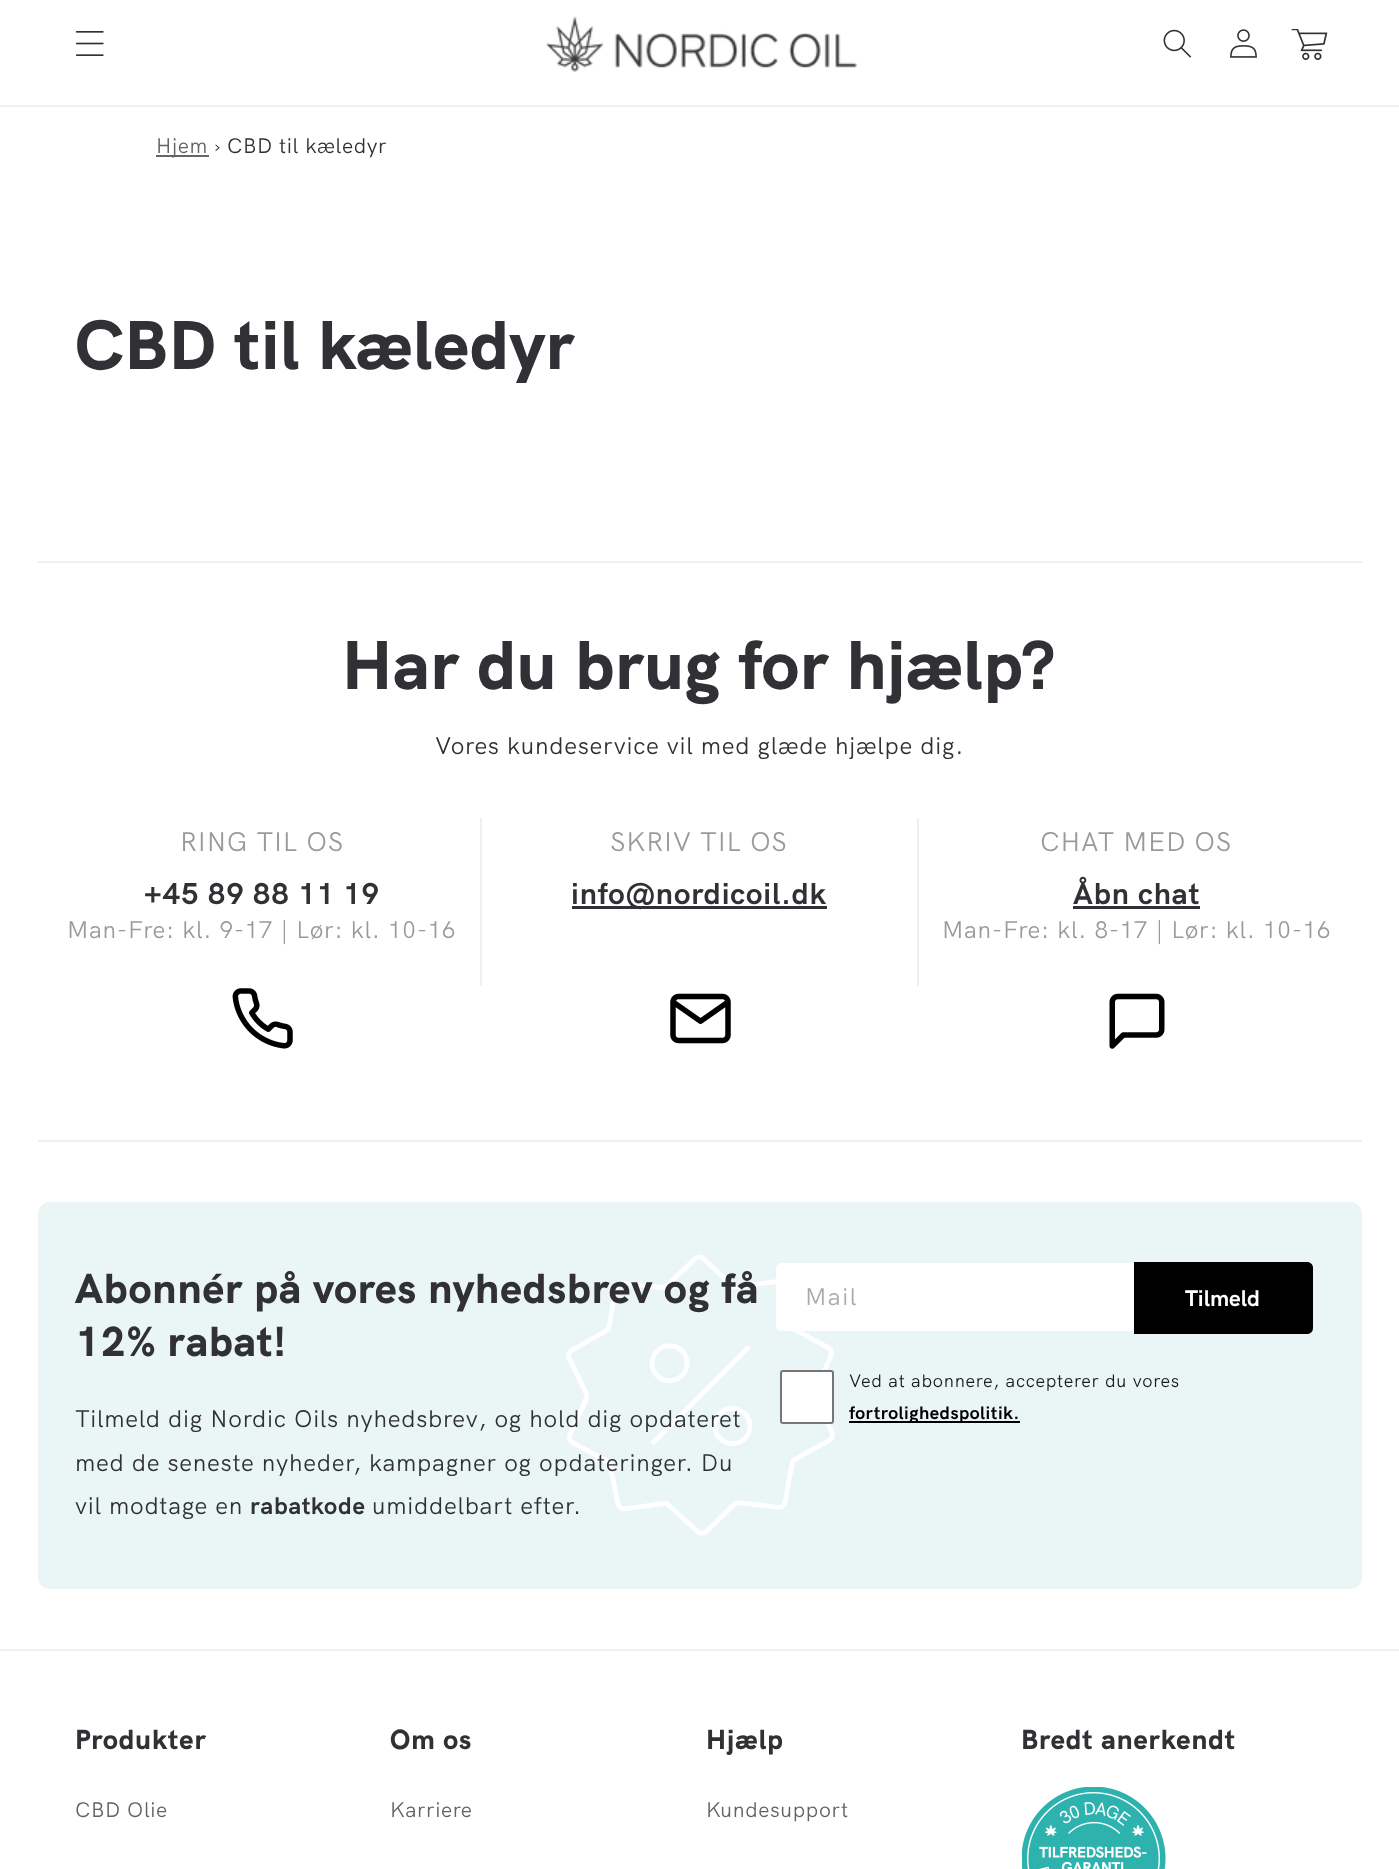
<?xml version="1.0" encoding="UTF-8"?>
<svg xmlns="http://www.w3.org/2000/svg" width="1399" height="1869">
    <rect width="100%" height="100%" fill="#FFFFFF"/>
    <rect x="0" y="105" width="1399" height="2" fill="#EFEFEF"/>
    <image x="75" y="31" width="29" height="25" href="img_01.png"/>
    <image x="546" y="16" width="311" height="56" href="img_02.png"/>
    <image x="1163" y="29" width="28" height="29" href="img_03.png"/>
    <image x="1230" y="29" width="27" height="29" href="img_04.png"/>
    <image x="1291" y="29" width="37" height="31" href="img_05.png"/>
    <rect x="156" y="155" width="53" height="2" fill="#656568"/>
    <text x="156" y="153" font-family="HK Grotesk" font-size="21" letter-spacing="0.6" fill="#636367">Hjem</text>
    <text x="214" y="153" font-family="HK Grotesk" font-size="21" letter-spacing="0.72" fill="#313135">›</text>
    <text x="227" y="153" font-family="HK Grotesk" font-size="21" letter-spacing="0.6" fill="#313135">CBD til kæledyr</text>
    <text x="75" y="369" font-family="HK Grotesk" font-size="69" font-weight="800" letter-spacing="1" fill="#313135">CBD til kæledyr</text>
    <rect x="38" y="561" width="1324" height="2" fill="#EFEFEF"/>
    <rect x="38" y="1140" width="1324" height="2" fill="#EFEFEF"/>
    <text x="342" y="689" font-family="HK Grotesk" font-size="69" font-weight="800" letter-spacing="1" fill="#313135">Har du brug for hjælp?</text>
    <text x="435" y="754" font-family="HK Grotesk" font-size="24" letter-spacing="0.72" fill="#313135">Vores kundeservice vil med glæde hjælpe dig.</text>
    <rect x="480" y="818" width="2" height="168" fill="#EFEFEF"/>
    <text x="180" y="851" font-family="HK Grotesk" font-size="27" letter-spacing="0.75" fill="#989A9E">RING TIL OS</text>
    <text x="144" y="904" font-family="HK Grotesk" font-size="30" font-weight="700" letter-spacing="0.9" fill="#313135">+45 89 88 11 19</text>
    <text x="67" y="938" font-family="HK Grotesk" font-size="24" letter-spacing="0.72" fill="#989A9E">Man-Fre: kl. 9-17 | Lør: kl. 10-16</text>
    <image x="232" y="988" width="61" height="61" href="img_06.png"/>
    <rect x="917" y="818" width="2" height="168" fill="#EFEFEF"/>
    <text x="610" y="851" font-family="HK Grotesk" font-size="27" letter-spacing="0.75" fill="#989A9E">SKRIV TIL OS</text>
    <rect x="572" y="906" width="255" height="3" fill="#313135"/>
    <text x="571" y="904" font-family="HK Grotesk" font-size="30" font-weight="700" letter-spacing="0.9" fill="#313135">info@nordicoil.dk</text>
    <image x="670" y="993" width="61" height="51" href="img_07.png"/>
    <text x="1040" y="851" font-family="HK Grotesk" font-size="27" letter-spacing="0.75" fill="#989A9E">CHAT MED OS</text>
    <text x="1073" y="904" font-family="HK Grotesk" font-size="30" font-weight="700" letter-spacing="0.9" fill="#313135">Åbn chat</text>
    <rect x="1073" y="906" width="127" height="3" fill="#313135"/>
    <text x="942" y="938" font-family="HK Grotesk" font-size="24" letter-spacing="0.72" fill="#989A9E">Man-Fre: kl. 8-17 | Lør: kl. 10-16</text>
    <image x="1109" y="993" width="56" height="56" href="img_08.png"/>
    <rect x="38" y="1202" width="1324" height="387" rx="12" fill="#EAF6F5"/>
    <image x="566" y="1254" width="269" height="282" href="img_09.png"/>
    <text font-family="HK Grotesk" font-size="42" font-weight="800" letter-spacing="1" fill="#313135">
        <tspan x="75" y="1303">Abonnér på vores nyhedsbrev og få</tspan>
        <tspan x="75" y="1356">12% rabat!</tspan>
    </text>
    <text font-family="HK Grotesk" font-size="24" letter-spacing="0.72" fill="#313135">
        <tspan x="75" y="1427">Tilmeld dig Nordic Oils nyhedsbrev, og hold dig opdateret</tspan>
        <tspan x="75" y="1471">med de seneste nyheder, kampagner og opdateringer. Du</tspan>
        <tspan x="75" y="1514">vil modtage en</tspan>
    </text>
    <text x="250" y="1514" font-family="HK Grotesk" font-size="24" font-weight="700" letter-spacing="0.72" fill="#313135">rabatkode</text>
    <text x="372" y="1514" font-family="HK Grotesk" font-size="24" letter-spacing="0.72" fill="#313135">umiddelbart efter.</text>
    <path d="M 782 1263 H 1313 V 1331 H 782 C 778.5 1331 776 1328.5 776 1325 V 1269 C 776 1265.5 778.5 1263 782 1263 Z" fill="#FFFFFF"/>
    <text x="805" y="1305" font-family="HK Grotesk" font-size="24" letter-spacing="1.5" fill="#A9A9A9">Mail</text>
    <path d="M 1134 1262 H 1307 C 1310.5 1262 1313 1264.5 1313 1268 V 1328 C 1313 1331.5 1310.5 1334 1307 1334 H 1134 Z" fill="#000000"/>
    <text x="1185" y="1306" font-family="HK Grotesk" font-size="22.5" font-weight="700" fill="#FFFFFF">Tilmeld</text>
    <rect x="781" y="1371" width="52" height="52" rx="2" fill="#FFFFFF" stroke="#767676" stroke-width="2"/>
    <text x="849" y="1387" font-family="HK Grotesk" font-size="18" letter-spacing="0.72" fill="#1C1C21">Ved at abonnere, accepterer du vores</text>
    <rect x="849" y="1421" width="171" height="2" fill="#000000"/>
    <text x="849" y="1419" font-family="HK Grotesk" font-size="18" font-weight="700" letter-spacing="0.5" fill="#000000">fortrolighedspolitik.</text>
    <rect x="0" y="1649" width="1399" height="2" fill="#EFEFEF"/>
    <text x="75" y="1749" font-family="HK Grotesk" font-size="27.5" font-weight="800" letter-spacing="1" fill="#313135">Produkter</text>
    <text x="75" y="1817" font-family="HK Grotesk" font-size="21" letter-spacing="0.6" fill="#636367">CBD Olie</text>
    <text x="390" y="1749" font-family="HK Grotesk" font-size="27.5" font-weight="800" letter-spacing="1" fill="#313135">Om os</text>
    <text x="390" y="1817" font-family="HK Grotesk" font-size="21" letter-spacing="0.6" fill="#636367">Karriere</text>
    <text x="706" y="1749" font-family="HK Grotesk" font-size="27.5" font-weight="800" letter-spacing="1" fill="#313135">Hjælp</text>
    <text x="706" y="1817" font-family="HK Grotesk" font-size="21" letter-spacing="0.6" fill="#636367">Kundesupport</text>
    <text x="1021" y="1749" font-family="HK Grotesk" font-size="27.5" font-weight="800" letter-spacing="1" fill="#313135">Bredt anerkendt</text>
    <image x="1022" y="1787" width="144" height="82" href="img_10.png"/>
</svg>
